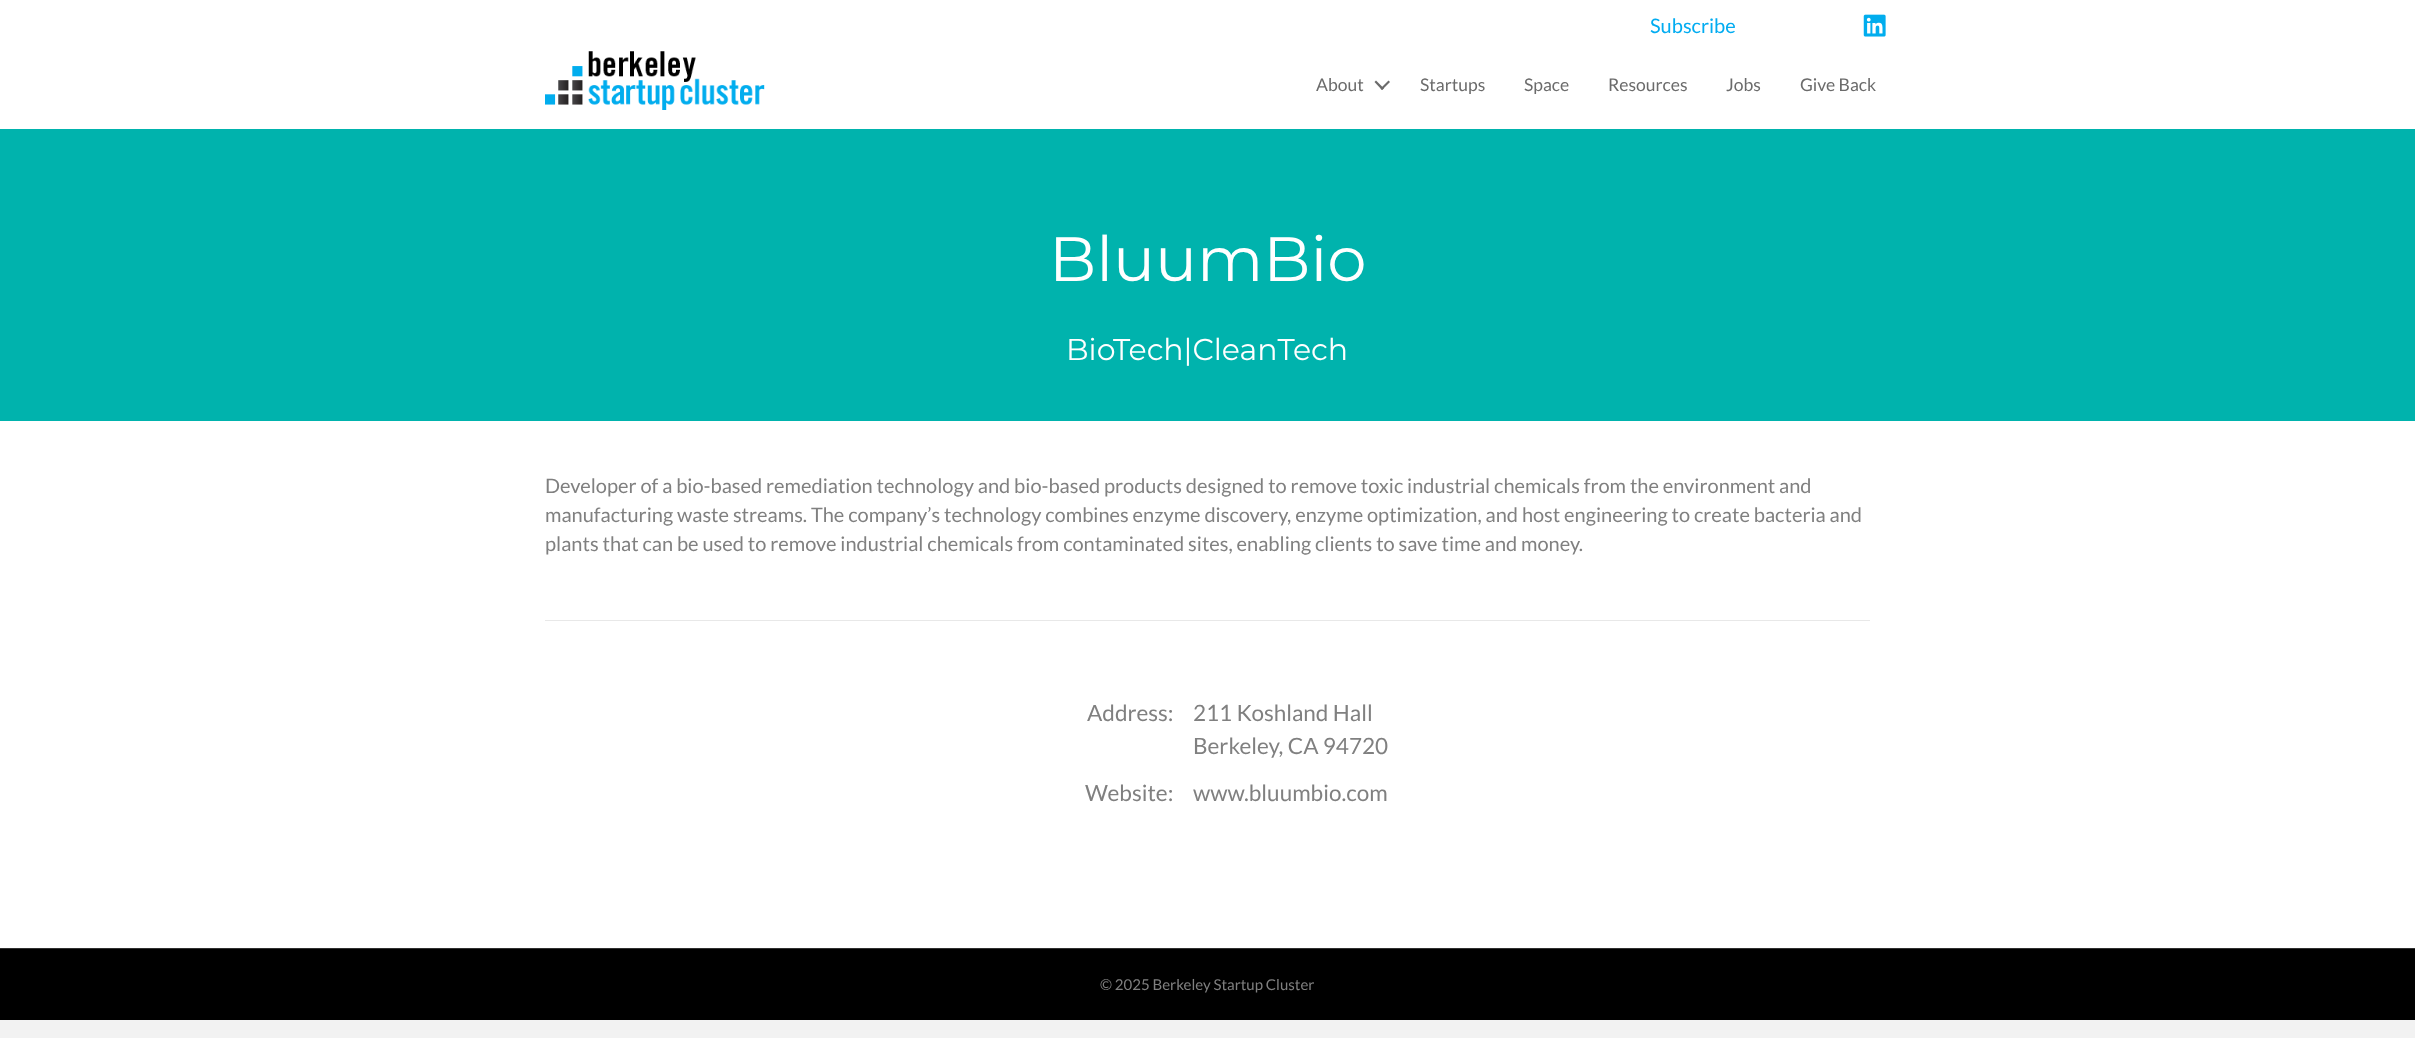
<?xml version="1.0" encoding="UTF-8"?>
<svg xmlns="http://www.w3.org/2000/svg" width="2415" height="1038">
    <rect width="100%" height="100%" fill="#F2F2F2"/>
    <rect x="0" y="0" width="2415" height="129" fill="#FFFFFF"/>
    <text x="1650" y="33" font-family="Lato" font-size="20" fill="#02ACF1">Subscribe</text>
    <image x="1863" y="14" width="23" height="23" href="img_01.png"/>
    <image x="545" y="51" width="220" height="59" href="img_02.png"/>
    <text x="1316" y="91" font-family="Lato" font-size="17.5" fill="#6B6B6B">About</text>
    <path d="M 1388.5 80.5 L 1390 82 L 1382 90 L 1380.5 88.5 Z" fill="#6B6B6B"/>
    <path d="M 1376 80.5 L 1384 88.5 L 1382 90 L 1374.5 82 Z" fill="#6B6B6B"/>
    <text x="1420" y="91" font-family="Lato" font-size="17.5" fill="#6B6B6B">Startups</text>
    <text x="1524" y="91" font-family="Lato" font-size="17.5" fill="#6B6B6B">Space</text>
    <text x="1608" y="91" font-family="Lato" font-size="17.5" fill="#6B6B6B">Resources</text>
    <text x="1726" y="91" font-family="Lato" font-size="17.5" fill="#6B6B6B">Jobs</text>
    <text x="1800" y="91" font-family="Lato" font-size="17.5" fill="#6B6B6B">Give Back</text>
    <rect x="0" y="421" width="2415" height="527" fill="#FFFFFF"/>
    <rect x="0" y="129" width="2415" height="292" fill="#00B3AD"/>
    <text x="1049" y="281" font-family="Montserrat" font-size="62.5" font-weight="100" fill="#FFFFFF">BluumBio</text>
    <text x="1066" y="360" font-family="Montserrat" font-size="30" font-weight="100" fill="#FFFFFF">BioTech|CleanTech</text>
    <text font-family="Lato" font-size="20" fill="#808080">
        <tspan x="545" y="493">Developer of a bio-based remediation technology and bio-based products designed to remove toxic industrial chemicals from the environment and</tspan>
        <tspan x="545" y="522">manufacturing waste streams. The company’s technology combines enzyme discovery, enzyme optimization, and host engineering to create bacteria and</tspan>
        <tspan x="545" y="551">plants that can be used to remove industrial chemicals from contaminated sites, enabling clients to save time and money.</tspan>
    </text>
    <rect x="545" y="620" width="1325" height="1" fill="#E8E8E8"/>
    <text x="1087" y="721" font-family="Lato" font-size="22.5" fill="#808080">Address:</text>
    <text font-family="Lato" font-size="22.5" fill="#808080">
        <tspan x="1193" y="721">211 Koshland Hall</tspan>
        <tspan x="1193" y="754">Berkeley, CA 94720</tspan>
    </text>
    <text x="1085" y="801" font-family="Lato" font-size="22.5" fill="#808080">Website:</text>
    <text x="1193" y="801" font-family="Lato" font-size="22.5" fill="#808080">www.bluumbio.com</text>
    <rect x="0" y="949" width="2415" height="71" fill="#000000"/>
    <rect x="0" y="948" width="2415" height="1" fill="#303030"/>
    <text x="1100" y="990" font-family="Lato" font-size="15" fill="#808080">© 2025 Berkeley Startup Cluster</text>
</svg>
